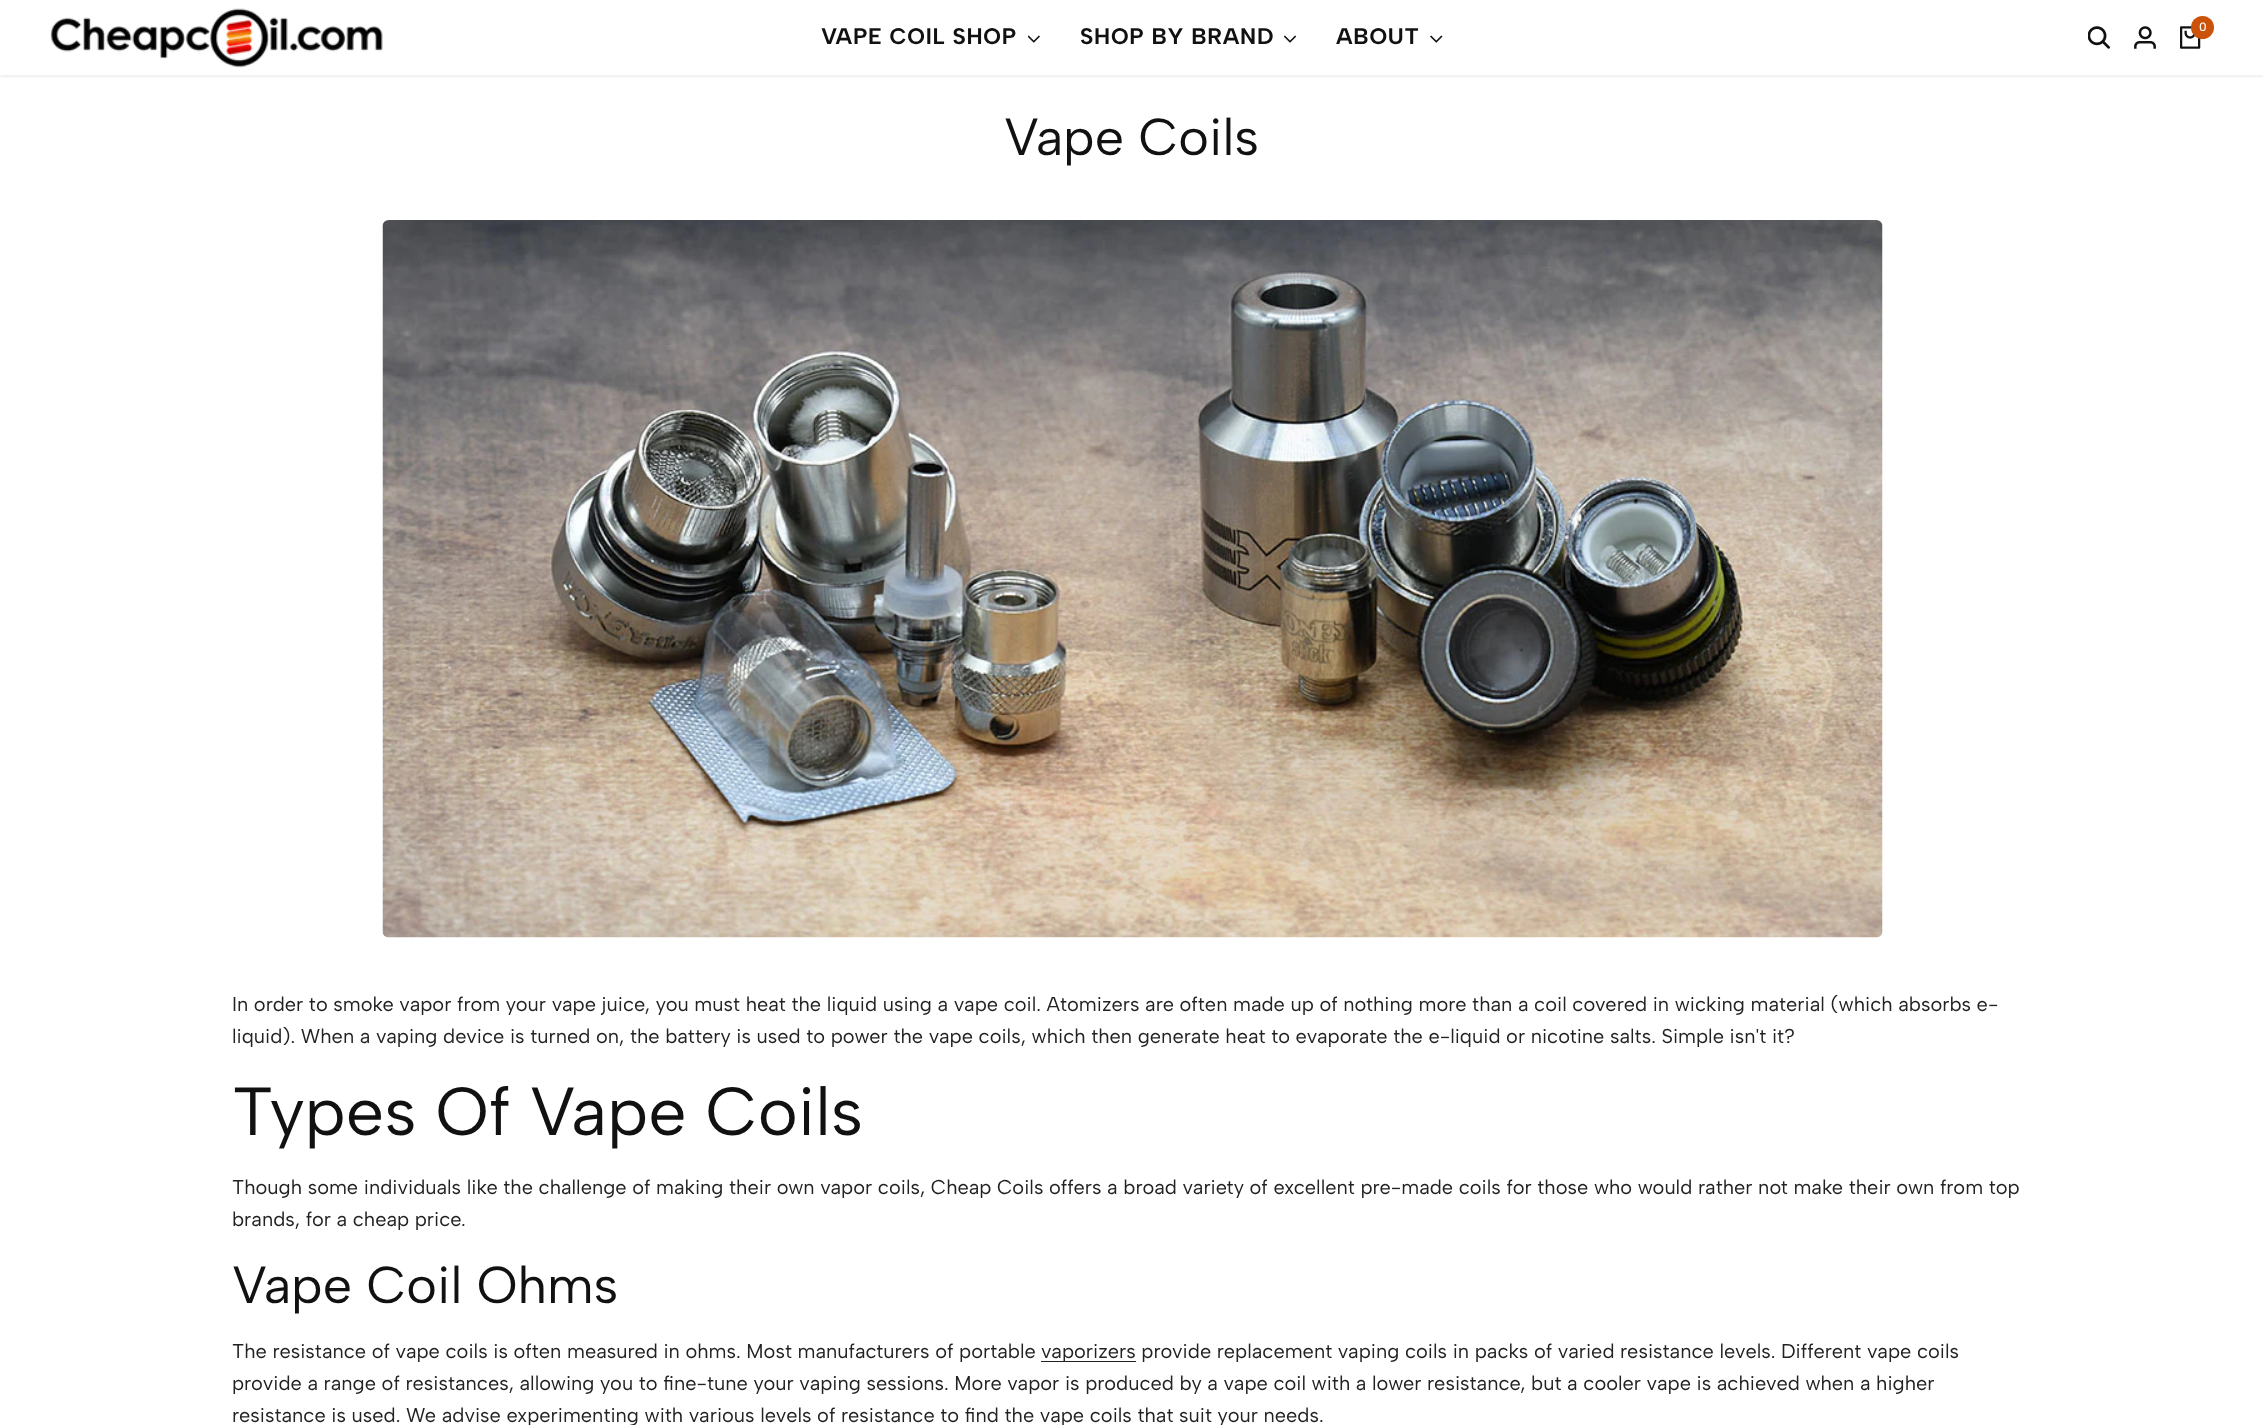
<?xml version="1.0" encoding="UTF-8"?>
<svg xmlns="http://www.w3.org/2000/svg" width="2263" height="1425">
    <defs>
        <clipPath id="clip1"><rect x="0" y="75" width="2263" height="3"/></clipPath>
        <filter id="blur1" x="-50%" y="-200%" width="200%" height="500%"><feGaussianBlur stdDeviation="2"/></filter>
    </defs>
    <rect width="100%" height="100%" fill="#FFFFFF"/>
    <g clip-path="url(#clip1)">
        <rect x="0" y="1" width="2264" height="75" fill="#111111" fill-opacity="0.1" filter="url(#blur1)"/>
    </g>
    <image x="50" y="8" width="333" height="60" href="img_01.png"/>
    <image x="2088" y="26" width="22" height="23" href="img_02.png"/>
    <image x="2134" y="26" width="22" height="23" href="img_03.png"/>
    <image x="2180" y="26" width="21" height="23" href="img_04.png"/>
    <circle cx="2202.5" cy="27.5" r="11.5" fill="#CC5109"/>
    <text x="2199" y="31" font-family="Albert Sans" font-size="12" font-weight="500" fill="#FFFFFF">0</text>
    <text x="821" y="44" font-family="Albert Sans" font-size="22.5" font-weight="700" letter-spacing="0.75" fill="#111111">VAPE COIL SHOP</text>
    <image x="1028" y="35" width="12" height="8" href="img_05.png"/>
    <text x="1080" y="44" font-family="Albert Sans" font-size="22.5" font-weight="700" letter-spacing="0.75" fill="#111111">SHOP BY BRAND</text>
    <image x="1284" y="35" width="12" height="8" href="img_06.png"/>
    <text x="1336" y="44" font-family="Albert Sans" font-size="22.5" font-weight="700" letter-spacing="0.75" fill="#111111">ABOUT</text>
    <image x="1430" y="35" width="13" height="8" href="img_07.png"/>
    <text x="1004" y="155" font-family="Albert Sans" font-size="52" fill="#111111">Vape Coils</text>
    <image x="382" y="220" width="1501" height="718" href="img_08.png"/>
    <text font-family="Albert Sans" font-size="20" fill="#222222">
        <tspan x="232" y="1011">In order to smoke vapor from your vape juice, you must heat the liquid using a vape coil. Atomizers are often made up of nothing more than a coil covered in wicking material (which absorbs e-</tspan>
        <tspan x="232" y="1043">liquid). When a vaping device is turned on, the battery is used to power the vape coils, which then generate heat to evaporate the e-liquid or nicotine salts. Simple isn't it?</tspan>
    </text>
    <text x="232" y="1135" font-family="Albert Sans" font-size="68" fill="#111111">Types Of Vape Coils</text>
    <text font-family="Albert Sans" font-size="20" fill="#222222">
        <tspan x="232" y="1194">Though some individuals like the challenge of making their own vapor coils, Cheap Coils offers a broad variety of excellent pre-made coils for those who would rather not make their own from top</tspan>
        <tspan x="232" y="1226">brands, for a cheap price.</tspan>
    </text>
    <text x="232" y="1303" font-family="Albert Sans" font-size="52" fill="#111111">Vape Coil Ohms</text>
    <text x="232" y="1358" font-family="Albert Sans" font-size="20" fill="#222222">The resistance of vape coils is often measured in ohms. Most manufacturers of portable</text>
    <rect x="1041" y="1361" width="95" height="1" fill="#222222"/>
    <text x="1041" y="1358" font-family="Albert Sans" font-size="20" fill="#222222">vaporizers provide replacement vaping coils in packs of varied resistance levels. Different vape coils</text>
    <text font-family="Albert Sans" font-size="20" fill="#222222">
        <tspan x="232" y="1390">provide a range of resistances, allowing you to fine-tune your vaping sessions. More vapor is produced by a vape coil with a lower resistance, but a cooler vape is achieved when a higher</tspan>
        <tspan x="232" y="1422">resistance is used. We advise experimenting with various levels of resistance to find the vape coils that suit your needs.</tspan>
    </text>
</svg>
